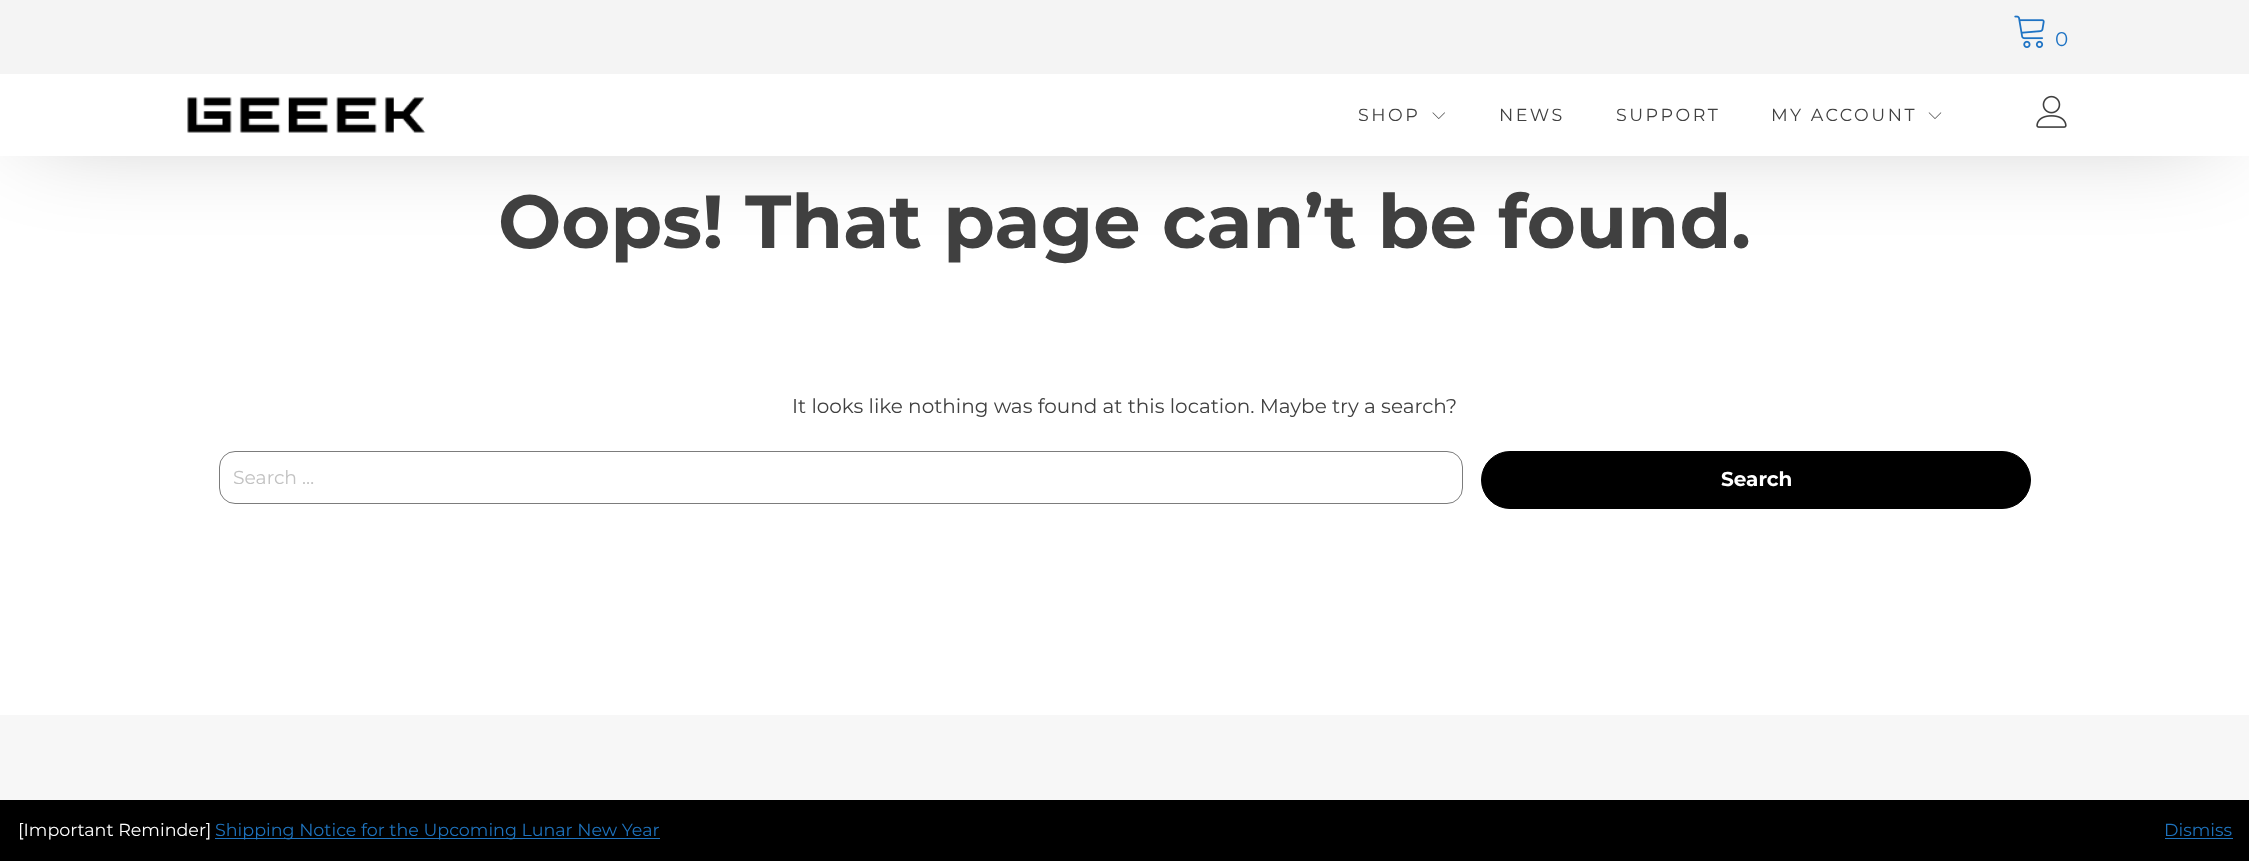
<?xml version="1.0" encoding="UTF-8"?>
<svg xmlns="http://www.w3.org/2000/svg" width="2249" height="861">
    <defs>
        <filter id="blur1" x="-50%" y="-200%" width="200%" height="500%"><feGaussianBlur stdDeviation="50.5"/></filter>
    </defs>
    <rect width="100%" height="100%" fill="#FFFFFF"/>
    <rect x="31" y="36" width="2183" height="89" fill="#000000" fill-opacity="0.29" filter="url(#blur1)"/>
    <rect x="0" y="74" width="2249" height="82" fill="#FFFFFF"/>
    <rect x="0" y="0" width="2249" height="74" fill="#F4F4F4"/>
    <image x="2014" y="15" width="31" height="33" href="img_01.png"/>
    <text x="2055" y="46" font-family="Montserrat" font-size="20" fill="#1E73C4">0</text>
    <image x="187" y="97" width="239" height="36" href="img_02.png"/>
    <text x="1358" y="121" font-family="Montserrat" font-size="17.5" letter-spacing="2.5" fill="#404040">SHOP</text>
    <image x="1432" y="112" width="13" height="7" href="img_03.png"/>
    <text x="1499" y="121" font-family="Montserrat" font-size="17.5" letter-spacing="2.5" fill="#404040">NEWS</text>
    <text x="1616" y="121" font-family="Montserrat" font-size="17.5" letter-spacing="2.5" fill="#404040">SUPPORT</text>
    <text x="1771" y="121" font-family="Montserrat" font-size="17.5" letter-spacing="2.5" fill="#404040">MY ACCOUNT</text>
    <image x="1928" y="112" width="14" height="7" href="img_04.png"/>
    <image x="2036" y="95" width="31" height="33" href="img_05.png"/>
    <text x="498" y="248" font-family="Montserrat" font-size="75" font-weight="700" fill="#404040">Oops! That page can’t be found.</text>
    <text x="792" y="413" font-family="Montserrat" font-size="20" fill="#404040">It looks like nothing was found at this location. Maybe try a search?</text>
    <rect x="219.5" y="451.5" width="1243" height="52" rx="15.5" fill="none" stroke="#7C7C7C"/>
    <text x="233" y="484" font-family="Montserrat" font-size="18.75" fill="#C2C2C2">Search …</text>
    <rect x="1481.5" y="451.5" width="549" height="57" rx="28.5" fill="#000000" stroke="#000000"/>
    <text x="1721" y="486" font-family="Montserrat" font-size="20" font-weight="700" fill="#FFFFFF">Search</text>
    <rect x="0" y="715" width="2249" height="85" fill="#F7F7F7"/>
    <rect x="0" y="800" width="2249" height="61" fill="#000000"/>
    <text x="18" y="836" font-family="Montserrat" font-size="17.5" fill="#FFFFFF">[Important Reminder]</text>
    <rect x="215" y="838" width="445" height="1" fill="#1E73BE"/>
    <text x="215" y="836" font-family="Montserrat" font-size="17.5" fill="#1E73BE">Shipping Notice for the Upcoming Lunar New Year</text>
    <text x="2164" y="836" font-family="Montserrat" font-size="17.5" fill="#1E73BE">Dismiss</text>
    <rect x="2165" y="838" width="68" height="1" fill="#1E73BE"/>
</svg>
